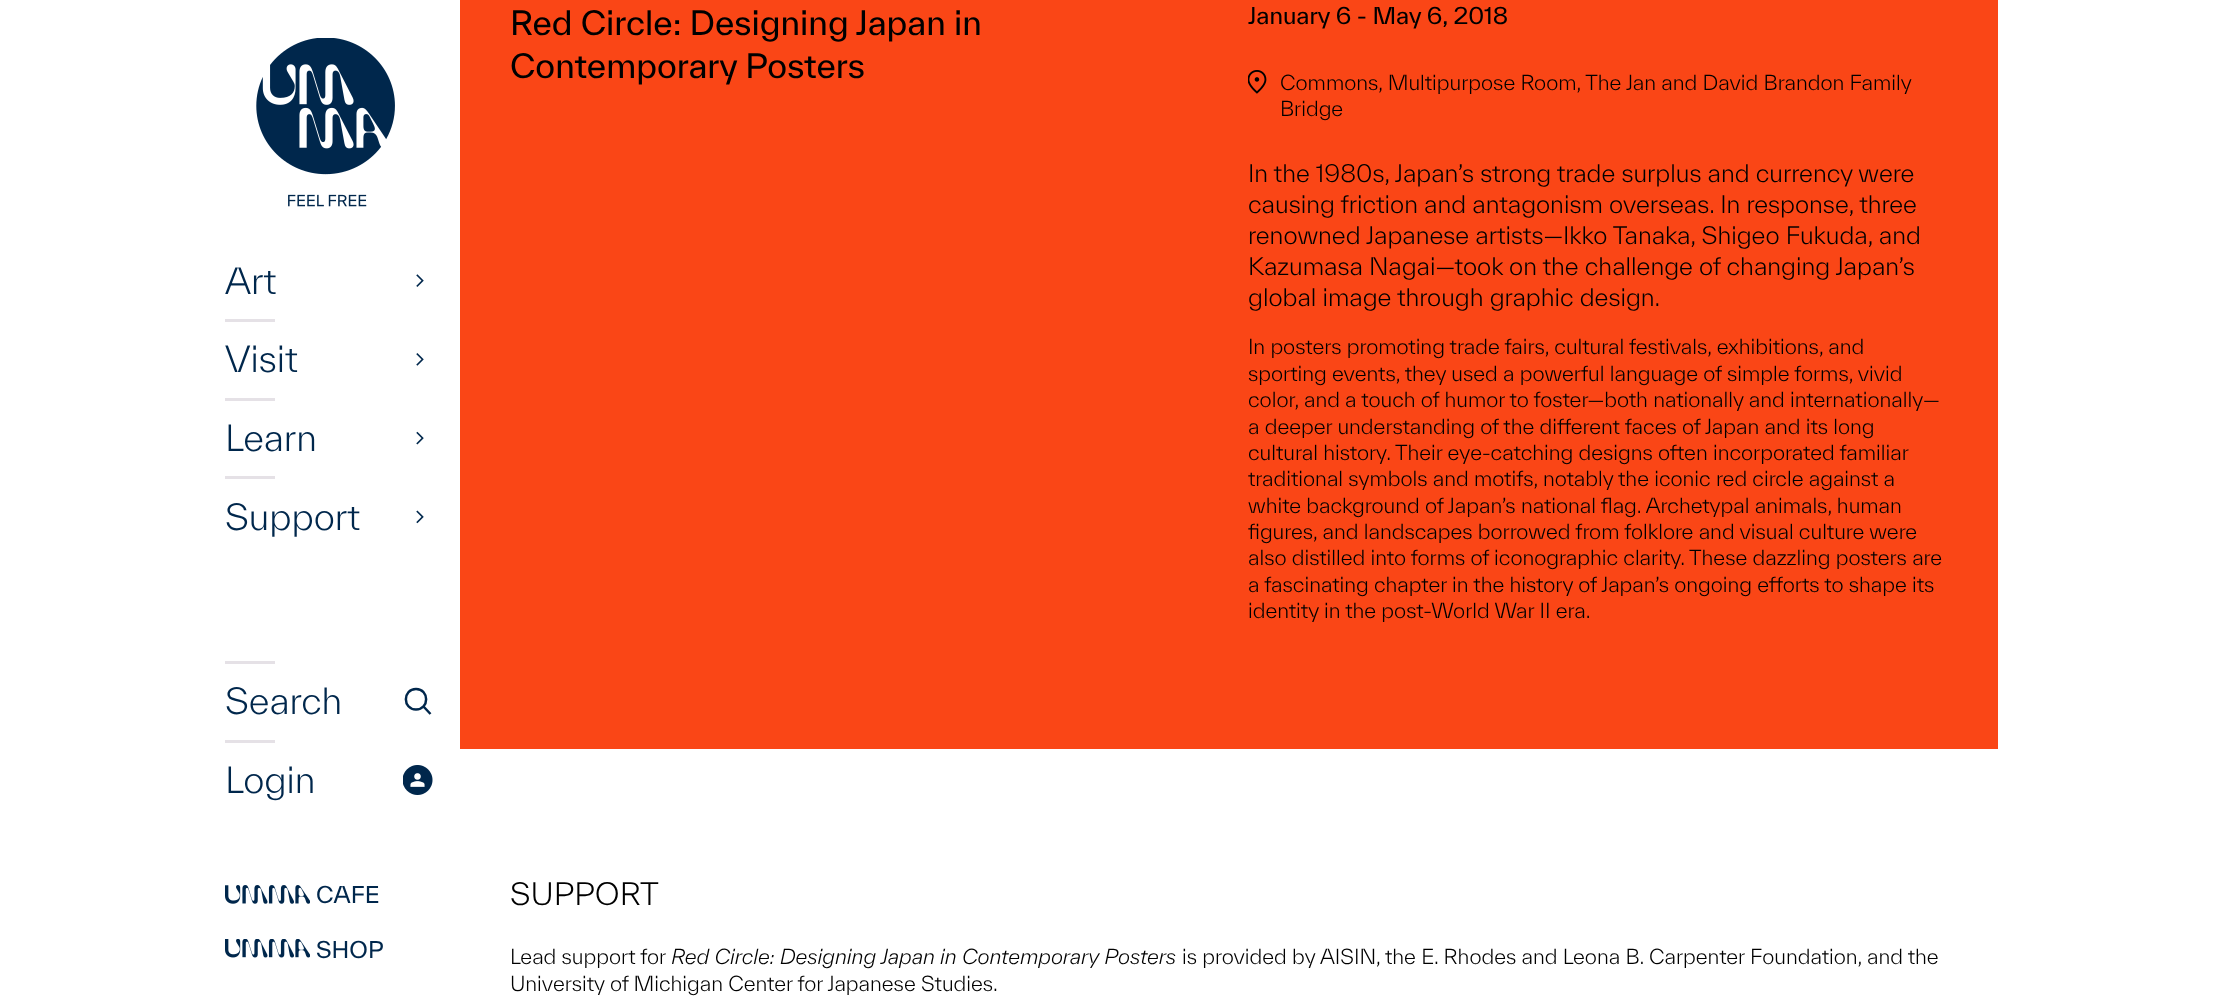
<?xml version="1.0" encoding="UTF-8"?>
<svg xmlns="http://www.w3.org/2000/svg" width="2213" height="1002">
    <rect width="100%" height="100%" fill="#FFFFFF"/>
    <image x="256" y="38" width="139" height="169" href="img_01.png"/>
    <text x="225" y="294" font-family="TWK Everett" font-size="35" font-weight="300" fill="#00274C">Art</text>
    <image x="416" y="274" width="8" height="13" href="img_02.png"/>
    <rect x="225" y="319" width="50" height="3" fill="#E5E1E6"/>
    <text x="225" y="372" font-family="TWK Everett" font-size="35" font-weight="300" fill="#00274C">Visit</text>
    <image x="416" y="353" width="8" height="13" href="img_03.png"/>
    <rect x="225" y="398" width="50" height="3" fill="#E5E1E6"/>
    <text x="225" y="451" font-family="TWK Everett" font-size="35" font-weight="300" fill="#00274C">Learn</text>
    <image x="416" y="431" width="8" height="14" href="img_04.png"/>
    <rect x="225" y="476" width="50" height="3" fill="#E5E1E6"/>
    <text x="225" y="530" font-family="TWK Everett" font-size="35" font-weight="300" fill="#00274C">Support</text>
    <image x="416" y="510" width="8" height="14" href="img_05.png"/>
    <rect x="225" y="661" width="50" height="3" fill="#E5E1E6"/>
    <text x="225" y="714" font-family="TWK Everett" font-size="35" font-weight="300" fill="#00274C">Search</text>
    <path d="M 416 709.5 C 429.5 709.5 429.5 689 416 689 C 402.5 689 402.5 709.5 416 709.5 Z M 430.5 714 L 423.5 706.5" fill="none" stroke="#00274C" stroke-width="2.5"/>
    <rect x="225" y="740" width="50" height="3" fill="#E5E1E6"/>
    <text x="225" y="793" font-family="TWK Everett" font-size="35" font-weight="300" fill="#00274C">Login</text>
    <image x="403" y="765" width="30" height="30" href="img_06.png"/>
    <image x="225" y="885" width="85" height="19" href="img_07.png"/>
    <text x="316" y="903" font-family="TWK Everett" font-size="22.5" fill="#00274C">CAFE</text>
    <image x="225" y="939" width="85" height="19" href="img_08.png"/>
    <text x="316" y="958" font-family="TWK Everett" font-size="22.5" fill="#00274C">SHOP</text>
    <rect x="460" y="0" width="1538" height="749" fill="#FA4616"/>
    <text font-family="TWK Everett" font-size="32.5" fill="#000000">
        <tspan x="510" y="35">Red Circle: Designing Japan in</tspan>
        <tspan x="510" y="78">Contemporary Posters</tspan>
    </text>
    <text x="1248" y="24" font-family="TWK Everett" font-size="22.5" fill="#000000">January 6 - May 6, 2018</text>
    <image x="1248" y="70" width="19" height="24" href="img_09.png"/>
    <text font-family="TWK Everett" font-size="20" font-weight="300" fill="#000000">
        <tspan x="1280" y="90">Commons, Multipurpose Room, The Jan and David Brandon Family</tspan>
        <tspan x="1280" y="116">Bridge</tspan>
    </text>
    <text font-family="TWK Everett" font-size="23.4" font-weight="300" fill="#000000">
        <tspan x="1248" y="182">In the 1980s, Japan’s strong trade surplus and currency were</tspan>
        <tspan x="1248" y="213">causing friction and antagonism overseas. In response, three</tspan>
        <tspan x="1248" y="244">renowned Japanese artists—Ikko Tanaka, Shigeo Fukuda, and</tspan>
        <tspan x="1248" y="275">Kazumasa Nagai—took on the challenge of changing Japan’s</tspan>
        <tspan x="1248" y="306">global image through graphic design.</tspan>
    </text>
    <text font-family="TWK Everett" font-size="20" font-weight="300" fill="#000000">
        <tspan x="1248" y="354">In posters promoting trade fairs, cultural festivals, exhibitions, and</tspan>
        <tspan x="1248" y="381">sporting events, they used a powerful language of simple forms, vivid</tspan>
        <tspan x="1248" y="407">color, and a touch of humor to foster—both nationally and internationally—</tspan>
        <tspan x="1248" y="434">a deeper understanding of the different faces of Japan and its long</tspan>
        <tspan x="1248" y="460">cultural history. Their eye-catching designs often incorporated familiar</tspan>
        <tspan x="1248" y="486">traditional symbols and motifs, notably the iconic red circle against a</tspan>
        <tspan x="1248" y="513">white background of Japan’s national flag. Archetypal animals, human</tspan>
        <tspan x="1248" y="539">figures, and landscapes borrowed from folklore and visual culture were</tspan>
        <tspan x="1248" y="565">also distilled into forms of iconographic clarity. These dazzling posters are</tspan>
        <tspan x="1248" y="592">a fascinating chapter in the history of Japan’s ongoing efforts to shape its</tspan>
        <tspan x="1248" y="618">identity in the post-World War II era.</tspan>
    </text>
    <text x="510" y="905" font-family="TWK Everett" font-size="30" font-weight="300" fill="#000000">SUPPORT</text>
    <text x="510" y="964" font-family="TWK Everett" font-size="20" font-weight="300" fill="#000000">Lead support for</text>
    <text x="671" y="964" font-family="TWK Everett" font-size="20" font-weight="300" font-style="italic" fill="#000000">Red Circle: Designing Japan in Contemporary Posters</text>
    <text x="1182" y="964" font-family="TWK Everett" font-size="20" font-weight="300" fill="#000000">is provided by AISIN, the E. Rhodes and Leona B. Carpenter Foundation, and the</text>
    <text x="510" y="991" font-family="TWK Everett" font-size="20" font-weight="300" fill="#000000">University of Michigan Center for Japanese Studies.</text>
</svg>
